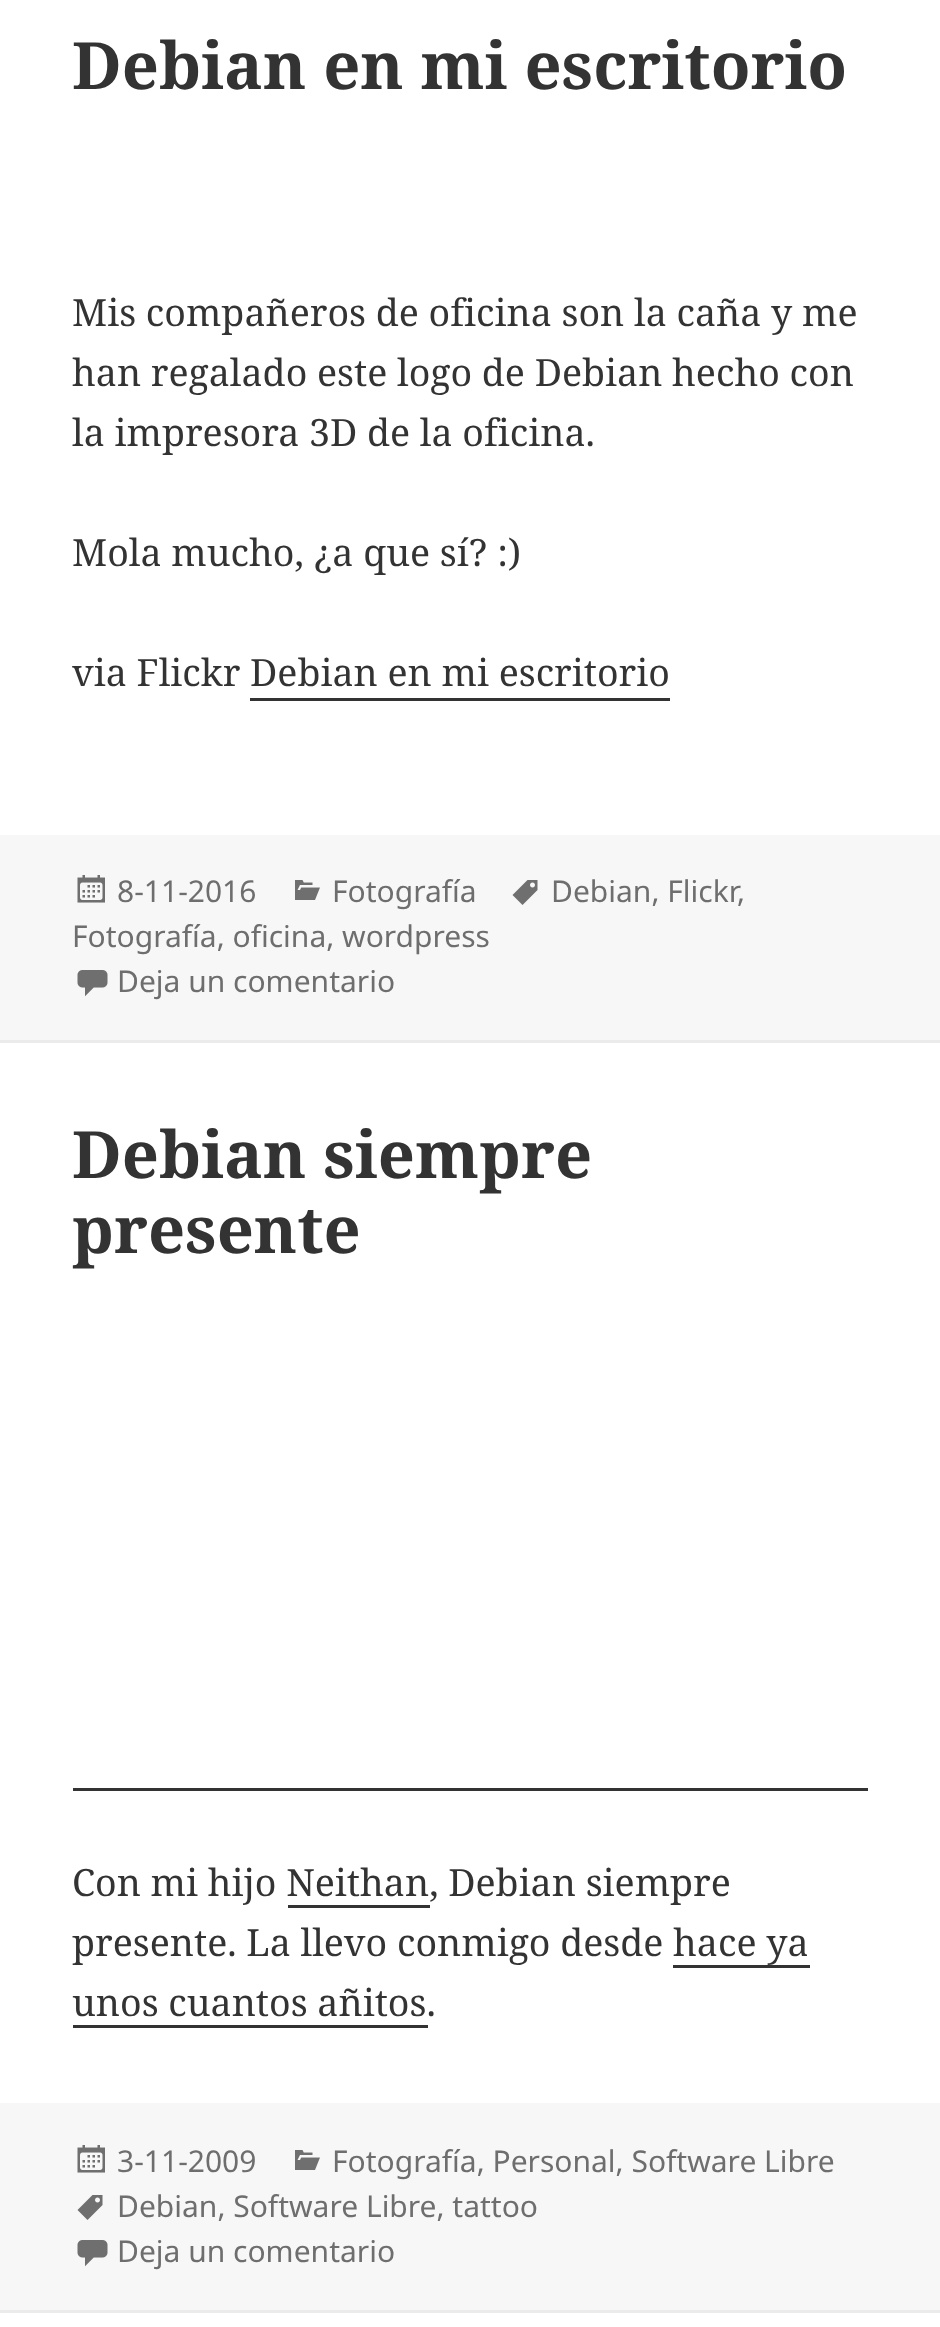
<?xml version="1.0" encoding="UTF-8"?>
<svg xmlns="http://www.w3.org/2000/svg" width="940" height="2327">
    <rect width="100%" height="100%" fill="#FFFFFF"/>
    <text x="72" y="89" font-family="Noto Serif" font-size="65" font-weight="700" fill="#333333">Debian en mi escritorio</text>
    <text font-family="Noto Serif" font-size="37.5" fill="#333333">
        <tspan x="72" y="326">Mis compañeros de oficina son la caña y me</tspan>
        <tspan x="72" y="386">han regalado este logo de Debian hecho con</tspan>
        <tspan x="72" y="446">la impresora 3D de la oficina.</tspan>
    </text>
    <text x="72" y="566" font-family="Noto Serif" font-size="37.5" fill="#333333">Mola mucho, ¿a que sí? :)</text>
    <text x="72" y="686" font-family="Noto Serif" font-size="37.5" fill="#333333">via Flickr Debian en mi escritorio</text>
    <rect x="250" y="698" width="420" height="3" fill="#333333"/>
    <rect x="0" y="835" width="940" height="205" fill="#F7F7F7"/>
    <image x="512" y="880" width="26" height="25" href="img_01.png"/>
    <text x="551" y="902" font-family="Noto Sans" font-size="30" fill="#6E6E6E">Debian, Flickr</text>
    <text x="737" y="902" font-family="Noto Sans" font-size="30" fill="#6E6E6E">,</text>
    <text x="72" y="947" font-family="Noto Sans" font-size="30" fill="#6E6E6E">Fotografía, oficina, wordpress</text>
    <image x="77" y="875" width="28" height="28" href="img_02.png"/>
    <text x="117" y="902" font-family="Noto Sans" font-size="30" fill="#6E6E6E">8-11-2016</text>
    <image x="295" y="880" width="25" height="20" href="img_03.png"/>
    <text x="332" y="902" font-family="Noto Sans" font-size="30" fill="#6E6E6E">Fotografía</text>
    <image x="77" y="970" width="31" height="27" href="img_04.png"/>
    <text x="117" y="992" font-family="Noto Sans" font-size="30" fill="#6E6E6E">Deja un comentario</text>
    <rect x="0" y="1040" width="940" height="3" fill="#EBEBEB"/>
    <text font-family="Noto Serif" font-size="65" font-weight="700" fill="#333333">
        <tspan x="72" y="1178">Debian siempre</tspan>
        <tspan x="72" y="1253">presente</tspan>
    </text>
    <rect x="73" y="1788" width="795" height="3" fill="#333333"/>
    <text x="72" y="1896" font-family="Noto Serif" font-size="37.5" fill="#333333">Con mi hijo Neithan, Debian siempre</text>
    <rect x="288" y="1905" width="142" height="3" fill="#333333"/>
    <text font-family="Noto Serif" font-size="37.5" fill="#333333">
        <tspan x="72" y="1956">presente. La llevo conmigo desde hace ya</tspan>
        <tspan x="72" y="2016">unos cuantos añitos.</tspan>
    </text>
    <rect x="673" y="1965" width="137" height="3" fill="#333333"/>
    <rect x="73" y="2025" width="355" height="3" fill="#333333"/>
    <rect x="0" y="2103" width="940" height="207" fill="#F7F7F7"/>
    <image x="77" y="2145" width="28" height="28" href="img_02.png"/>
    <text x="117" y="2172" font-family="Noto Sans" font-size="30" fill="#6E6E6E">3-11-2009</text>
    <image x="295" y="2150" width="25" height="20" href="img_03.png"/>
    <text x="332" y="2172" font-family="Noto Sans" font-size="30" fill="#6E6E6E">Fotografía, Personal, Software Libre</text>
    <image x="77" y="2195" width="26" height="25" href="img_01.png"/>
    <text x="117" y="2217" font-family="Noto Sans" font-size="30" fill="#6E6E6E">Debian, Software Libre, tattoo</text>
    <image x="77" y="2240" width="31" height="27" href="img_04.png"/>
    <text x="117" y="2262" font-family="Noto Sans" font-size="30" fill="#6E6E6E">Deja un comentario</text>
    <rect x="0" y="2310" width="940" height="3" fill="#EBEBEB"/>
</svg>
